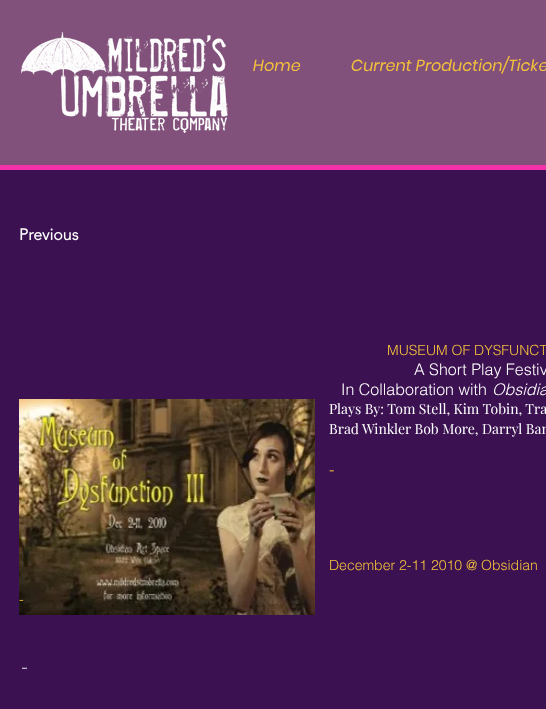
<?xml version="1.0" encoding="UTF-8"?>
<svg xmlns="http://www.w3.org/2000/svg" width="546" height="709">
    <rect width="100%" height="100%" fill="#3B1151"/>
    <rect x="0" y="0" width="546" height="165" fill="#81507B"/>
    <rect x="0" y="165" width="546" height="5" fill="#F433AB"/>
    <image x="21" y="32" width="207" height="101" href="img_01.png"/>
    <text x="253" y="71" font-family="Poppins" font-size="16" font-style="italic" fill="#F3C03C">Home</text>
    <text x="351" y="71" font-family="Poppins" font-size="16" font-style="italic" fill="#F3C03C">Current Production/Ticke</text>
    <text x="19" y="240" font-family="'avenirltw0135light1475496'" font-size="16" font-weight="700" fill="#FFFFFF">Previous</text>
    <text x="387" y="355" font-family="helvetica" font-size="14" font-weight="300" fill="#F3C03C">MUSEUM OF DYSFUNCT</text>
    <text x="414" y="375" font-family="helvetica" font-size="16" font-weight="300" fill="#FFFFFF">A Short Play Festiv</text>
    <text x="341" y="395" font-family="helvetica" font-size="16" font-weight="300" fill="#FFFFFF">In Collaboration with</text>
    <text x="492" y="395" font-family="helvetica" font-size="16" font-weight="300" font-style="italic" fill="#FFFFFF">Obsidia</text>
    <image x="19" y="399" width="296" height="216" href="img_02.png"/>
    <text font-family="Playfair Display" font-size="14" fill="#FFFFFF">
        <tspan x="329" y="414">Plays By: Tom Stell, Kim Tobin, Tra</tspan>
        <tspan x="329" y="434">Brad Winkler Bob More, Darryl Ban</tspan>
    </text>
    <text x="329" y="475" font-family="helvetica" font-size="16" font-weight="300" fill="#F3C03C">-</text>
    <text x="329" y="570" font-family="helvetica" font-size="14" font-weight="300" fill="#F3C03C">December 2-11 2010 @ Obsidian</text>
    <text x="19" y="604" font-family="helvetica" font-size="14" font-weight="300" fill="#F3C03C">-</text>
    <text x="21" y="672" font-family="Playfair Display" font-size="14" fill="#FFFFFF">-</text>
</svg>
